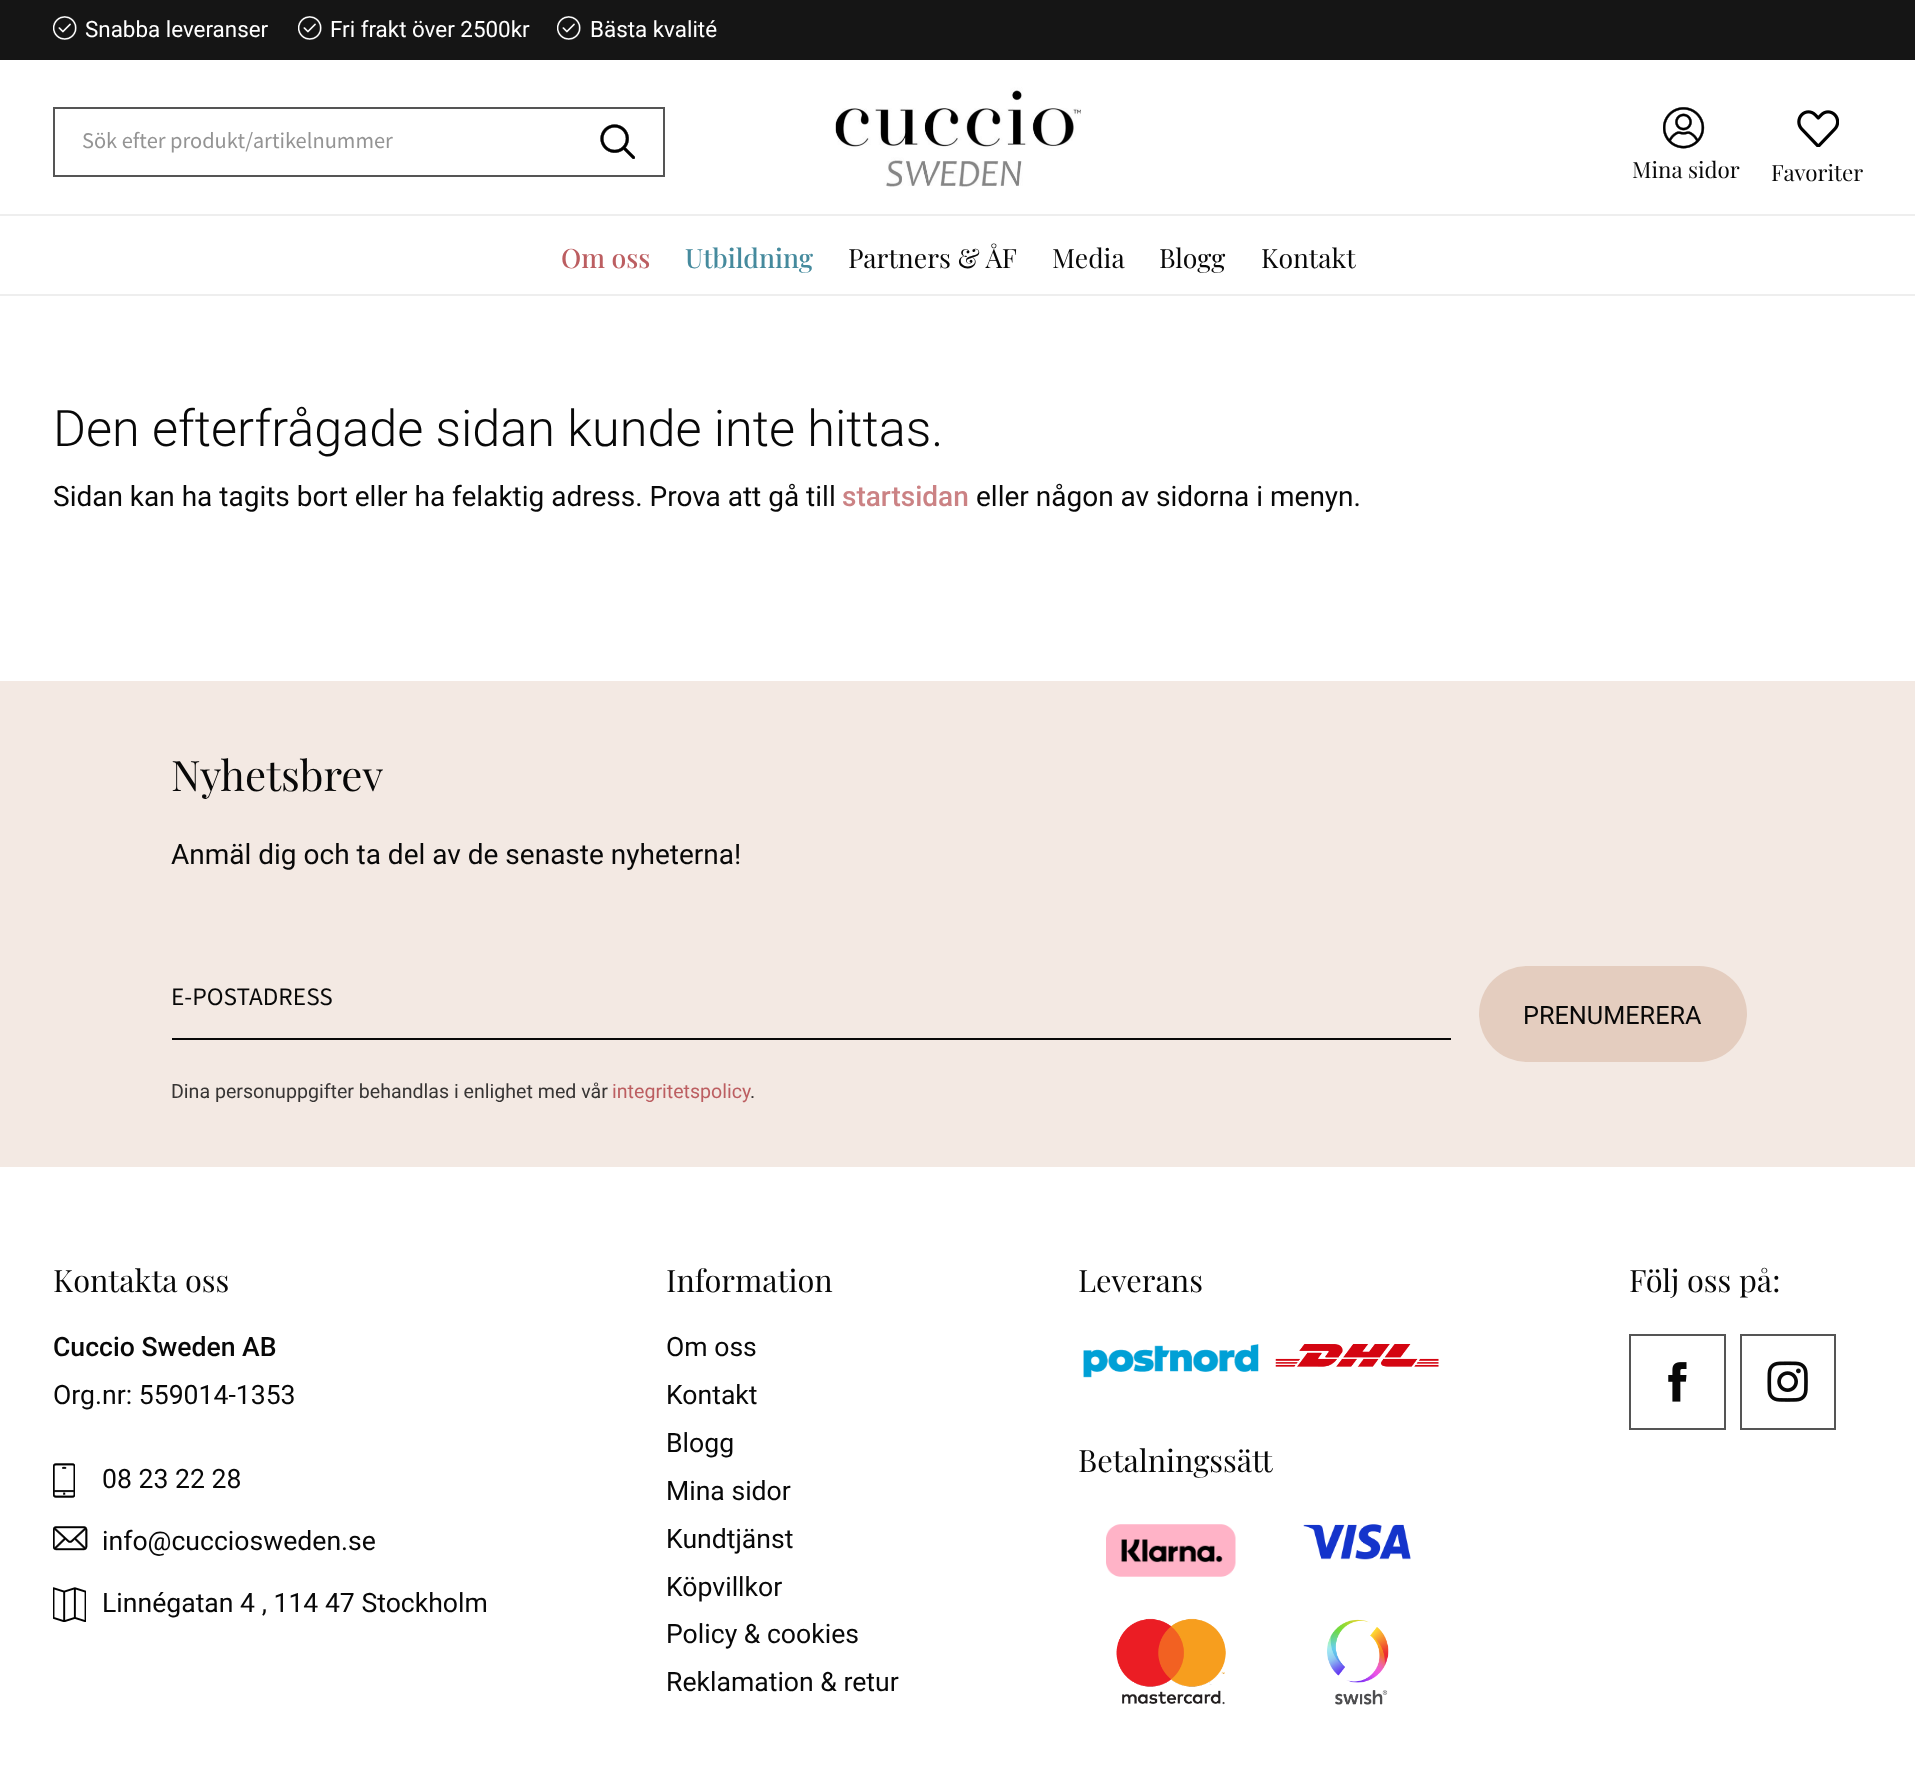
<?xml version="1.0" encoding="UTF-8"?>
<svg xmlns="http://www.w3.org/2000/svg" width="1915" height="1782">
    <rect width="100%" height="100%" fill="#FFFFFF"/>
    <rect x="0" y="0" width="1915" height="60" fill="#151515"/>
    <image x="53" y="16" width="24" height="24" href="img_01.png"/>
    <text x="85" y="37" font-family="Roboto" font-size="22.4" fill="#FFFFFF">Snabba leveranser</text>
    <image x="298" y="16" width="24" height="24" href="img_01.png"/>
    <text x="330" y="37" font-family="Roboto" font-size="22.4" fill="#FFFFFF">Fri frakt över 2500kr</text>
    <image x="557" y="16" width="24" height="24" href="img_01.png"/>
    <text x="590" y="37" font-family="Roboto" font-size="22.4" fill="#FFFFFF">Bästa kvalité</text>
    <rect x="54" y="108" width="610" height="68" fill="none" stroke="#555555" stroke-width="2"/>
    <text x="82" y="148" font-family="Source Sans Pro" font-size="22.4" fill="#949494">Sök efter produkt/artikelnummer</text>
    <image x="600" y="124" width="35" height="35" href="img_02.png"/>
    <image x="835" y="87" width="246" height="100" href="img_03.png"/>
    <image x="1663" y="107" width="42" height="42" href="img_04.png"/>
    <text x="1632" y="178" font-family="Playfair Display" font-size="22.4" fill="#080808">Mina sidor</text>
    <image x="1797" y="110" width="42" height="37" href="img_05.png"/>
    <text x="1771" y="181" font-family="Playfair Display" font-size="22.4" fill="#080808">Favoriter</text>
    <rect x="0" y="214" width="1915" height="2" fill="#EEEEEE"/>
    <rect x="0" y="294" width="1915" height="2" fill="#EEEEEE"/>
    <text x="561" y="268" font-family="Playfair Display" font-size="26.6" font-weight="500" fill="#BC5E61">Om oss</text>
    <text x="685" y="268" font-family="Playfair Display" font-size="26.6" font-weight="500" fill="#458A9D">Utbildning</text>
    <text x="848" y="268" font-family="Playfair Display" font-size="26.6" fill="#080808">Partners &amp; ÅF</text>
    <text x="1052" y="268" font-family="Playfair Display" font-size="26.6" fill="#080808">Media</text>
    <text x="1159" y="268" font-family="Playfair Display" font-size="26.6" fill="#080808">Blogg</text>
    <text x="1261" y="268" font-family="Playfair Display" font-size="26.6" fill="#080808">Kontakt</text>
    <text x="53" y="446" font-family="Roboto" font-size="50.4" font-weight="300" fill="#080808">Den efterfrågade sidan kunde inte hittas.</text>
    <text x="53" y="506" font-family="Roboto" font-size="28" fill="#080808">Sidan kan ha tagits bort eller ha felaktig adress. Prova att gå till</text>
    <text x="842" y="506" font-family="Roboto" font-size="28" font-weight="500" fill="#CB8284">startsidan</text>
    <text x="976" y="506" font-family="Roboto" font-size="28" fill="#080808">eller någon av sidorna i menyn.</text>
    <rect x="0" y="681" width="1915" height="486" fill="#F3E9E3"/>
    <text x="171" y="791" font-family="Playfair Display" font-size="42" fill="#080808">Nyhetsbrev</text>
    <text x="171" y="864" font-family="Roboto" font-size="28" fill="#080808">Anmäl dig och ta del av de senaste nyheterna!</text>
    <rect x="172" y="1038" width="1279" height="2" fill="#080808"/>
    <text x="171" y="1005" font-family="Source Sans Pro" font-size="25.25" fill="#080808">E-POSTADRESS</text>
    <rect x="1479" y="966" width="268" height="96" rx="48" fill="#E4CDBF"/>
    <text x="1523" y="1024" font-family="Roboto" font-size="25.25" fill="#080808">PRENUMERERA</text>
    <text x="171" y="1098" font-family="Roboto" font-size="19.6" fill="#373534">Dina personuppgifter behandlas i enlighet med vår</text>
    <text x="612" y="1098" font-family="Roboto" font-size="19.6" fill="#BC5E61">integritetspolicy</text>
    <text x="750" y="1098" font-family="Roboto" font-size="19.6" fill="#373534">.</text>
    <text x="53" y="1292" font-family="Playfair Display" font-size="30.75" fill="#080808">Kontakta oss</text>
    <text x="53" y="1356" font-family="Roboto" font-size="26.6" font-weight="500" fill="#080808">Cuccio Sweden AB</text>
    <text x="53" y="1404" font-family="Roboto" font-size="26.6" fill="#080808">Org.nr: 559014-1353</text>
    <image x="53" y="1463" width="22" height="35" href="img_06.png"/>
    <text x="102" y="1488" font-family="Roboto" font-size="26.6" fill="#080808">08 23 22 28</text>
    <image x="53" y="1526" width="35" height="25" href="img_07.png"/>
    <text x="102" y="1550" font-family="Roboto" font-size="26.6" fill="#080808">info@cucciosweden.se</text>
    <image x="53" y="1587" width="33" height="35" href="img_08.png"/>
    <text x="102" y="1612" font-family="Roboto" font-size="26.6" fill="#080808">Linnégatan 4 , 114 47 Stockholm</text>
    <text x="666" y="1292" font-family="Playfair Display" font-size="30.75" fill="#080808">Information</text>
    <text font-family="Roboto" font-size="26.6" fill="#080808">
        <tspan x="666" y="1356">Om oss</tspan>
        <tspan x="666" y="1404">Kontakt</tspan>
        <tspan x="666" y="1452">Blogg</tspan>
        <tspan x="666" y="1500">Mina sidor</tspan>
        <tspan x="666" y="1548">Kundtjänst</tspan>
        <tspan x="666" y="1596">Köpvillkor</tspan>
        <tspan x="666" y="1643">Policy &amp; cookies</tspan>
        <tspan x="666" y="1691">Reklamation &amp; retur</tspan>
    </text>
    <text x="1078" y="1292" font-family="Playfair Display" font-size="30.75" fill="#080808">Leverans</text>
    <image x="1083" y="1344" width="176" height="34" href="img_09.png"/>
    <image x="1275" y="1344" width="164" height="23" href="img_10.png"/>
    <text x="1078" y="1472" font-family="Playfair Display" font-size="30.75" fill="#080808">Betalningssätt</text>
    <image x="1106" y="1524" width="130" height="53" href="img_11.png"/>
    <image x="1303" y="1524" width="108" height="36" href="img_12.png"/>
    <image x="1116" y="1618" width="110" height="87" href="img_13.png"/>
    <image x="1327" y="1619" width="62" height="86" href="img_14.png"/>
    <text x="1629" y="1292" font-family="Playfair Display" font-size="30.75" fill="#080808">Följ oss på:</text>
    <rect x="1630" y="1335" width="95" height="94" fill="none" stroke="#555555" stroke-width="2"/>
    <image x="1668" y="1362" width="19" height="40" href="img_15.png"/>
    <rect x="1741" y="1335" width="94" height="94" fill="none" stroke="#555555" stroke-width="2"/>
    <image x="1767" y="1361" width="41" height="41" href="img_16.png"/>
</svg>
